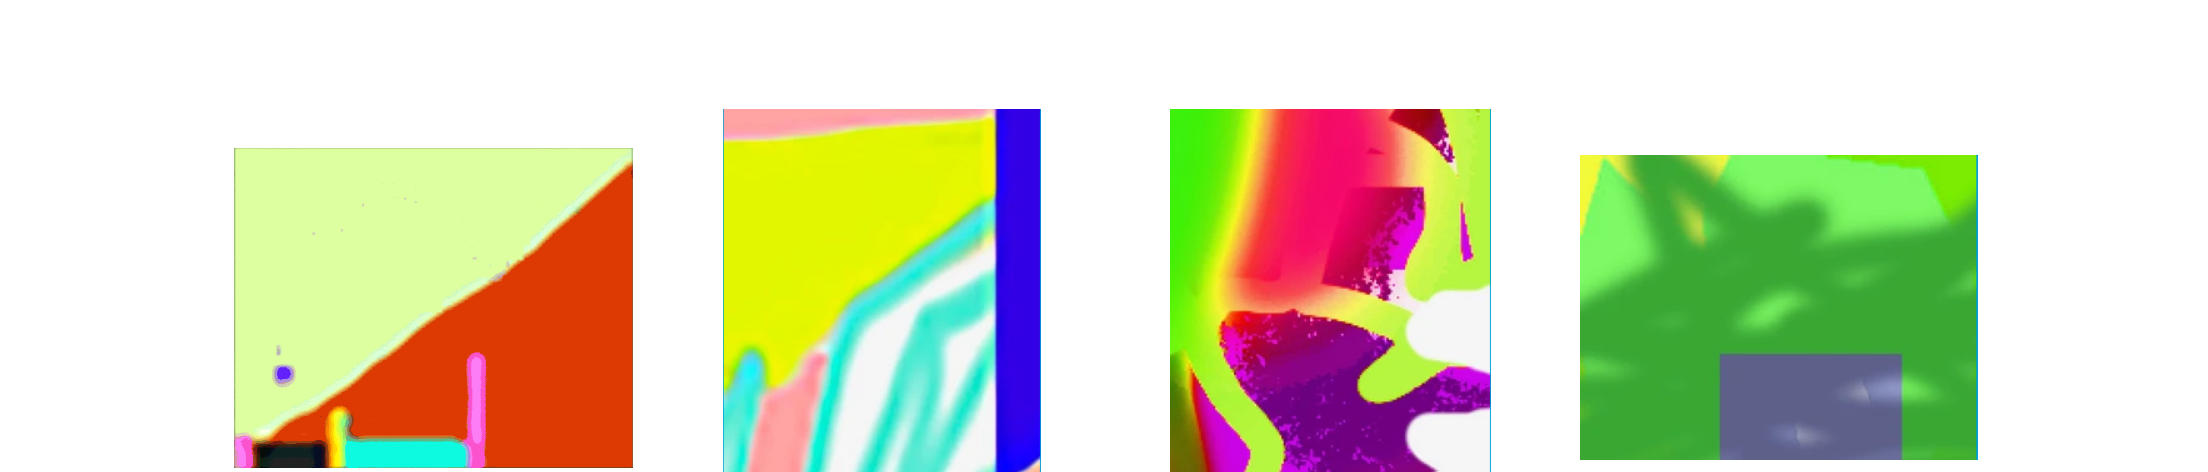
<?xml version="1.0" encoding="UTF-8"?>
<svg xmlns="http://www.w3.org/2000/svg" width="2208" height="472">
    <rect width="100%" height="100%" fill="#FFFFFF"/>
    <image x="234" y="148" width="399" height="320" href="img_01.png"/>
    <rect x="723" y="109" width="318" height="363" fill="#009ED8"/>
    <image x="723" y="109" width="318" height="363" href="img_02.png"/>
    <rect x="1489" y="109" width="2" height="363" fill="#009ED8"/>
    <image x="1170" y="109" width="321" height="363" href="img_03.png"/>
    <rect x="1976" y="155" width="2" height="305" fill="#009ED8"/>
    <image x="1580" y="155" width="397" height="305" href="img_04.png"/>
</svg>
